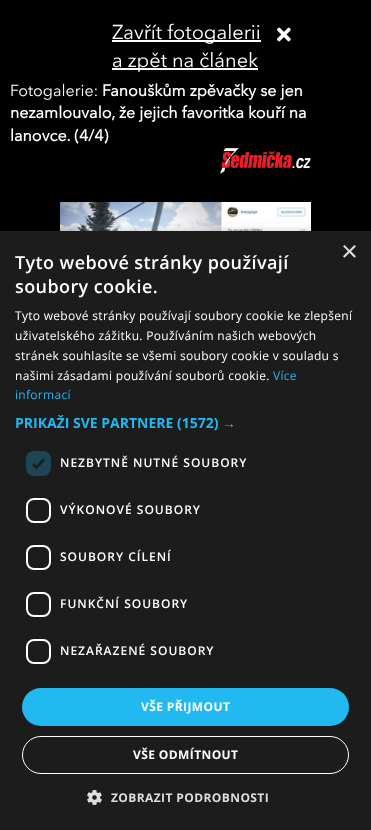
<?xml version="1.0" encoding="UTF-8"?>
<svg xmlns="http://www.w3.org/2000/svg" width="371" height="830">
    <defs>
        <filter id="blur1" x="-50%" y="-200%" width="200%" height="500%"><feGaussianBlur stdDeviation="4"/></filter>
    </defs>
    <rect width="100%" height="100%" fill="#000000"/>
    <rect x="112" y="40" width="149" height="2" fill="#FFFFFF"/>
    <text x="112" y="39" font-family="Avenir Next" font-size="20" fill="#FFFFFF">Zavřít fotogalerii</text>
    <image x="277" y="27" width="14" height="15" href="img_01.png"/>
    <rect x="112" y="68" width="146" height="2" fill="#FFFFFF"/>
    <text x="112" y="67" font-family="Avenir Next" font-size="20" fill="#FFFFFF">a zpět na článek</text>
    <text x="10" y="96" font-family="Avenir Next" font-size="16" fill="#FFFFFF">Fotogalerie:</text>
    <text x="102" y="96" font-family="Avenir Next" font-size="16" font-weight="700" fill="#FFFFFF">Fanouškům zpěvačky se jen</text>
    <text font-family="Avenir Next" font-size="16" font-weight="700" fill="#FFFFFF">
        <tspan x="10" y="118">nezamlouvalo, že jejich favoritka kouří na</tspan>
        <tspan x="10" y="141">lanovce. (4/4)</tspan>
    </text>
    <image x="220" y="148" width="91" height="26" href="img_02.png"/>
    <image x="60" y="202" width="251" height="29" href="img_03.png"/>
    <rect x="1" y="233" width="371" height="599" fill="#000000" fill-opacity="0.35" filter="url(#blur1)"/>
    <rect x="0" y="231" width="371" height="599" fill="#1C1C1C"/>
    <text x="341" y="261" font-family="Liberation Sans" font-size="29" fill="#DDDDDD">×</text>
    <text font-family="Open Sans" font-size="18" font-weight="600" letter-spacing="0.4" fill="#FFFFFF">
        <tspan x="15" y="269">Tyto webové stránky používají</tspan>
        <tspan x="15" y="293">soubory cookie.</tspan>
    </text>
    <text font-family="Open Sans" font-size="12" letter-spacing="0.3" fill="#FFFFFF">
        <tspan x="15" y="320">Tyto webové stránky používají soubory cookie ke zlepšení</tspan>
        <tspan x="15" y="340">uživatelského zážitku. Používáním našich webových</tspan>
        <tspan x="15" y="360">stránek souhlasíte se všemi soubory cookie v souladu s</tspan>
        <tspan x="15" y="380">našimi zásadami používání souborů cookie.</tspan>
    </text>
    <text x="273" y="380" font-family="Open Sans" font-size="12" letter-spacing="0.3" fill="#22B8F0">Více</text>
    <text x="15" y="399" font-family="Open Sans" font-size="12" letter-spacing="0.3" fill="#22B8F0">informací</text>
    <text x="15" y="428" font-family="Open Sans" font-size="14" font-weight="700" fill="#22B8F0">PRIKAŽI SVE PARTNERE (1572)</text>
    <text x="222" y="428" font-family="Liberation Sans" font-size="14" font-weight="700" fill="#22B8F0">→</text>
    <rect x="26" y="451" width="25" height="25" rx="8" fill="#1E4553"/>
    <path d="M 33 464 L 36.5 467.5 L 44 459.5" fill="none" stroke="#1C1C1C" stroke-width="2.6"/>
    <text x="60" y="467" font-family="Open Sans" font-size="12" font-weight="600" letter-spacing="1" fill="#FFFFFF">NEZBYTNĚ NUTNÉ SOUBORY</text>
    <rect x="27" y="499" width="23" height="23" rx="7" fill="none" stroke="#FFFFFF" stroke-width="2"/>
    <text x="60" y="514" font-family="Open Sans" font-size="12" font-weight="600" letter-spacing="1" fill="#FFFFFF">VÝKONOVÉ SOUBORY</text>
    <rect x="27" y="546" width="23" height="23" rx="7" fill="none" stroke="#FFFFFF" stroke-width="2"/>
    <text x="60" y="561" font-family="Open Sans" font-size="12" font-weight="600" letter-spacing="1" fill="#FFFFFF">SOUBORY CÍLENÍ</text>
    <rect x="27" y="593" width="23" height="23" rx="7" fill="none" stroke="#FFFFFF" stroke-width="2"/>
    <text x="60" y="608" font-family="Open Sans" font-size="12" font-weight="600" letter-spacing="1" fill="#FFFFFF">FUNKČNÍ SOUBORY</text>
    <rect x="27" y="640" width="23" height="23" rx="7" fill="none" stroke="#FFFFFF" stroke-width="2"/>
    <text x="60" y="655" font-family="Open Sans" font-size="12" font-weight="600" letter-spacing="1" fill="#FFFFFF">NEZAŘAZENÉ SOUBORY</text>
    <rect x="22" y="688" width="327" height="38" rx="19" fill="#22B8F0"/>
    <text x="141" y="711" font-family="Open Sans" font-size="12" font-weight="700" letter-spacing="0.4" fill="#FFFFFF">VŠE PŘIJMOUT</text>
    <rect x="22.5" y="736.5" width="326" height="37" rx="18.5" fill="none" stroke="#FFFFFF"/>
    <text x="133" y="759" font-family="Open Sans" font-size="12" font-weight="700" letter-spacing="0.4" fill="#FFFFFF">VŠE ODMÍTNOUT</text>
    <image x="87" y="790" width="15" height="15" href="img_04.png"/>
    <text x="111" y="802" font-family="Open Sans" font-size="12" font-weight="700" letter-spacing="0.4" fill="#DDDDDD">ZOBRAZIT PODROBNOSTI</text>
</svg>
